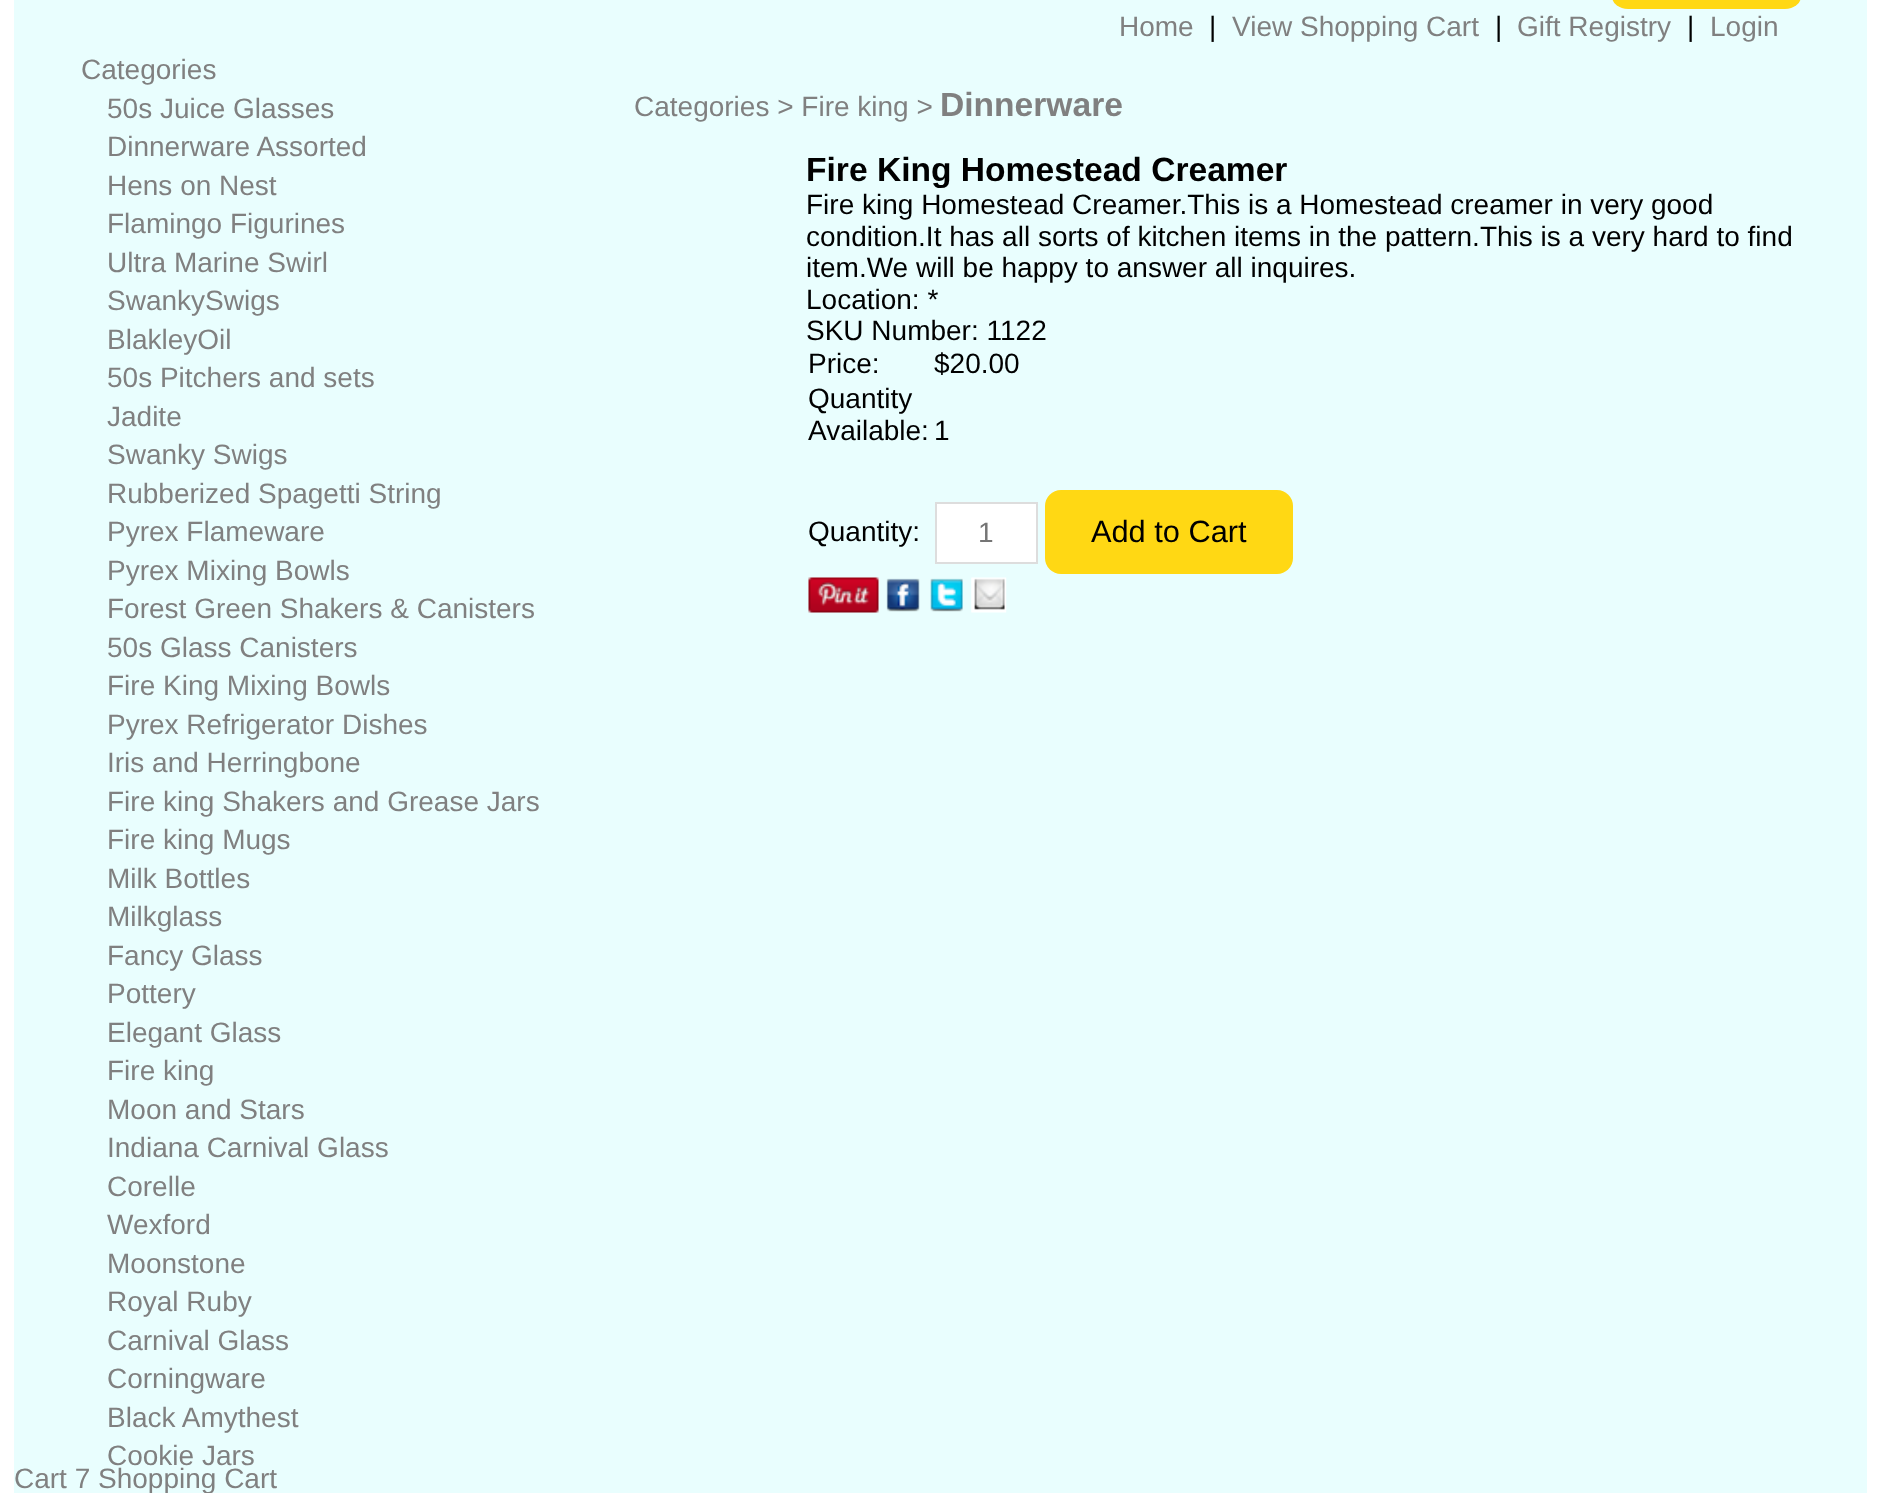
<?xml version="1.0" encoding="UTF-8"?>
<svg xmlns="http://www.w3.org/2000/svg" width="1881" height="1493">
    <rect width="100%" height="100%" fill="#FFFFFF"/>
    <rect x="14" y="0" width="1853" height="1493" fill="#E9FEFE"/>
    <rect x="1612" y="-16" width="189" height="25" rx="16" fill="#FFD814"/>
    <text x="1119" y="36" font-family="Liberation Sans" font-size="28" fill="#808080">Home</text>
    <text x="1209" y="36" font-family="Liberation Sans" font-size="28" fill="#000000">|</text>
    <text x="1232" y="36" font-family="Liberation Sans" font-size="28" fill="#808080">View Shopping Cart</text>
    <text x="1495" y="36" font-family="Liberation Sans" font-size="28" fill="#000000">|</text>
    <text x="1517" y="36" font-family="Liberation Sans" font-size="28" fill="#808080">Gift Registry</text>
    <text x="1687" y="36" font-family="Liberation Sans" font-size="28" fill="#000000">|</text>
    <text x="1710" y="36" font-family="Liberation Sans" font-size="28" fill="#808080">Login</text>
    <text x="81" y="79" font-family="Liberation Sans" font-size="28" fill="#808080">Categories</text>
    <text font-family="Liberation Sans" font-size="28" fill="#808080">
        <tspan x="107" y="118">50s Juice Glasses</tspan>
        <tspan x="107" y="156">Dinnerware Assorted</tspan>
        <tspan x="107" y="195">Hens on Nest</tspan>
        <tspan x="107" y="233">Flamingo Figurines</tspan>
        <tspan x="107" y="272">Ultra Marine Swirl</tspan>
        <tspan x="107" y="310">SwankySwigs</tspan>
        <tspan x="107" y="349">BlakleyOil</tspan>
        <tspan x="107" y="387">50s Pitchers and sets</tspan>
        <tspan x="107" y="426">Jadite</tspan>
        <tspan x="107" y="464">Swanky Swigs</tspan>
        <tspan x="107" y="503">Rubberized Spagetti String</tspan>
        <tspan x="107" y="541">Pyrex Flameware</tspan>
        <tspan x="107" y="580">Pyrex Mixing Bowls</tspan>
        <tspan x="107" y="618">Forest Green Shakers &amp; Canisters</tspan>
        <tspan x="107" y="657">50s Glass Canisters</tspan>
        <tspan x="107" y="695">Fire King Mixing Bowls</tspan>
        <tspan x="107" y="734">Pyrex Refrigerator Dishes</tspan>
        <tspan x="107" y="772">Iris and Herringbone</tspan>
        <tspan x="107" y="811">Fire king Shakers and Grease Jars</tspan>
        <tspan x="107" y="849">Fire king Mugs</tspan>
        <tspan x="107" y="888">Milk Bottles</tspan>
        <tspan x="107" y="926">Milkglass</tspan>
        <tspan x="107" y="965">Fancy Glass</tspan>
        <tspan x="107" y="1003">Pottery</tspan>
        <tspan x="107" y="1042">Elegant Glass</tspan>
        <tspan x="107" y="1080">Fire king</tspan>
        <tspan x="107" y="1119">Moon and Stars</tspan>
        <tspan x="107" y="1157">Indiana Carnival Glass</tspan>
        <tspan x="107" y="1196">Corelle</tspan>
        <tspan x="107" y="1234">Wexford</tspan>
        <tspan x="107" y="1273">Moonstone</tspan>
        <tspan x="107" y="1311">Royal Ruby</tspan>
        <tspan x="107" y="1350">Carnival Glass</tspan>
        <tspan x="107" y="1388">Corningware</tspan>
        <tspan x="107" y="1427">Black Amythest</tspan>
        <tspan x="107" y="1465">Cookie Jars</tspan>
    </text>
    <text x="634" y="116" font-family="Liberation Sans" font-size="28" fill="#808080">Categories &gt; Fire king &gt;</text>
    <text x="940" y="116" font-family="Liberation Sans" font-size="33.6" font-weight="700" fill="#808080">Dinnerware</text>
    <text x="806" y="181" font-family="Liberation Sans" font-size="33.6" font-weight="700" fill="#000000">Fire King Homestead Creamer</text>
    <text font-family="Liberation Sans" font-size="28" fill="#000000">
        <tspan x="806" y="214">Fire king Homestead Creamer.This is a Homestead creamer in very good</tspan>
        <tspan x="806" y="246">condition.It has all sorts of kitchen items in the pattern.This is a very hard to find</tspan>
        <tspan x="806" y="277">item.We will be happy to answer all inquires.</tspan>
        <tspan x="806" y="309">Location: *</tspan>
        <tspan x="806" y="340">SKU Number: 1122</tspan>
    </text>
    <text x="808" y="373" font-family="Liberation Sans" font-size="28" fill="#000000">Price:</text>
    <text x="934" y="373" font-family="Liberation Sans" font-size="28" fill="#000000">$20.00</text>
    <text font-family="Liberation Sans" font-size="28" fill="#000000">
        <tspan x="808" y="408">Quantity</tspan>
        <tspan x="808" y="440">Available:</tspan>
    </text>
    <text x="934" y="440" font-family="Liberation Sans" font-size="28" fill="#000000">1</text>
    <text x="808" y="541" font-family="Liberation Sans" font-size="28" fill="#000000">Quantity:</text>
    <rect x="936" y="503" width="101" height="60" fill="#FFFFFF" stroke="#DDDDDD" stroke-width="2"/>
    <text x="978" y="542" font-family="Liberation Sans" font-size="28" fill="#757575">1</text>
    <rect x="1045" y="490" width="248" height="84" rx="16" fill="#FFD814"/>
    <text x="1091" y="542" font-family="Liberation Sans" font-size="30.75" fill="#000000">Add to Cart</text>
    <image x="808" y="577" width="71" height="36" href="img_01.png"/>
    <image x="886" y="578" width="34" height="34" href="img_02.png"/>
    <image x="930" y="578" width="33" height="34" href="img_03.png"/>
    <image x="971" y="577" width="36" height="36" href="img_04.png"/>
    <text x="14" y="1488" font-family="Liberation Sans" font-size="28" fill="#808080">Cart 7 Shopping Cart</text>
</svg>
